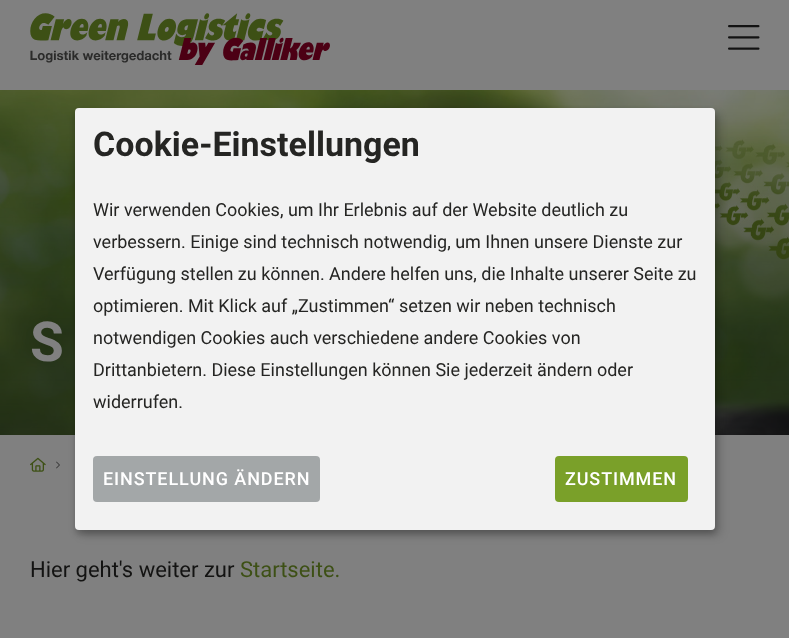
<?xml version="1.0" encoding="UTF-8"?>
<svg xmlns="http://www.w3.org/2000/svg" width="789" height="638">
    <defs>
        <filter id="blur1" x="-50%" y="-200%" width="200%" height="500%"><feGaussianBlur stdDeviation="5"/></filter>
        <filter id="blur2" x="-50%" y="-200%" width="200%" height="500%"><feGaussianBlur stdDeviation="3"/></filter>
    </defs>
    <rect width="100%" height="100%" fill="#808080"/>
    <image x="0" y="90" width="789" height="345" href="img_03.png"/>
    <rect x="80" y="113" width="640" height="422" rx="4" fill="#000000" fill-opacity="0.19" filter="url(#blur1)"/>
    <rect x="75" y="112" width="640" height="422" rx="4" fill="#000000" fill-opacity="0.2" filter="url(#blur2)"/>
    <rect x="75" y="108" width="640" height="422" rx="4" fill="#F2F2F2"/>
    <text x="93" y="156" font-family="Roboto" font-size="34" font-weight="700" fill="#252523">Cookie-Einstellungen</text>
    <text font-family="Roboto" font-size="18" fill="#252523">
        <tspan x="93" y="216">Wir verwenden Cookies, um Ihr Erlebnis auf der Website deutlich zu</tspan>
        <tspan x="93" y="248">verbessern. Einige sind technisch notwendig, um Ihnen unsere Dienste zur</tspan>
        <tspan x="93" y="280">Verfügung stellen zu können. Andere helfen uns, die Inhalte unserer Seite zu</tspan>
        <tspan x="93" y="312">optimieren. Mit Klick auf „Zustimmen“ setzen wir neben technisch</tspan>
        <tspan x="93" y="344">notwendigen Cookies auch verschiedene andere Cookies von</tspan>
        <tspan x="93" y="376">Drittanbietern. Diese Einstellungen können Sie jederzeit ändern oder</tspan>
        <tspan x="93" y="408">widerrufen.</tspan>
    </text>
    <rect x="93" y="456" width="227" height="46" rx="4" fill="#A3A7A8"/>
    <text x="103" y="485" font-family="Roboto" font-size="18" font-weight="500" letter-spacing="0.9" fill="#FFFFFF">EINSTELLUNG ÄNDERN</text>
    <rect x="555" y="456" width="133" height="46" rx="4" fill="#7AA029"/>
    <text x="565" y="485" font-family="Roboto" font-size="18" font-weight="500" letter-spacing="0.9" fill="#FFFFFF">ZUSTIMMEN</text>
    <image x="30" y="13" width="300" height="52" href="img_01.png"/>
    <image x="728" y="25" width="32" height="25" href="img_02.png"/>
    <text x="30" y="361" font-family="Roboto" font-size="55" font-weight="700" fill="#808080">S</text>
    <image x="30" y="457" width="16" height="15" href="img_04.png"/>
    <image x="56" y="461" width="4" height="8" href="img_05.png"/>
    <text x="30" y="577" font-family="Roboto" font-size="22" fill="#131312">Hier geht's weiter zur</text>
    <text x="240" y="577" font-family="Roboto" font-size="22" fill="#3D5015">Startseite.</text>
</svg>
